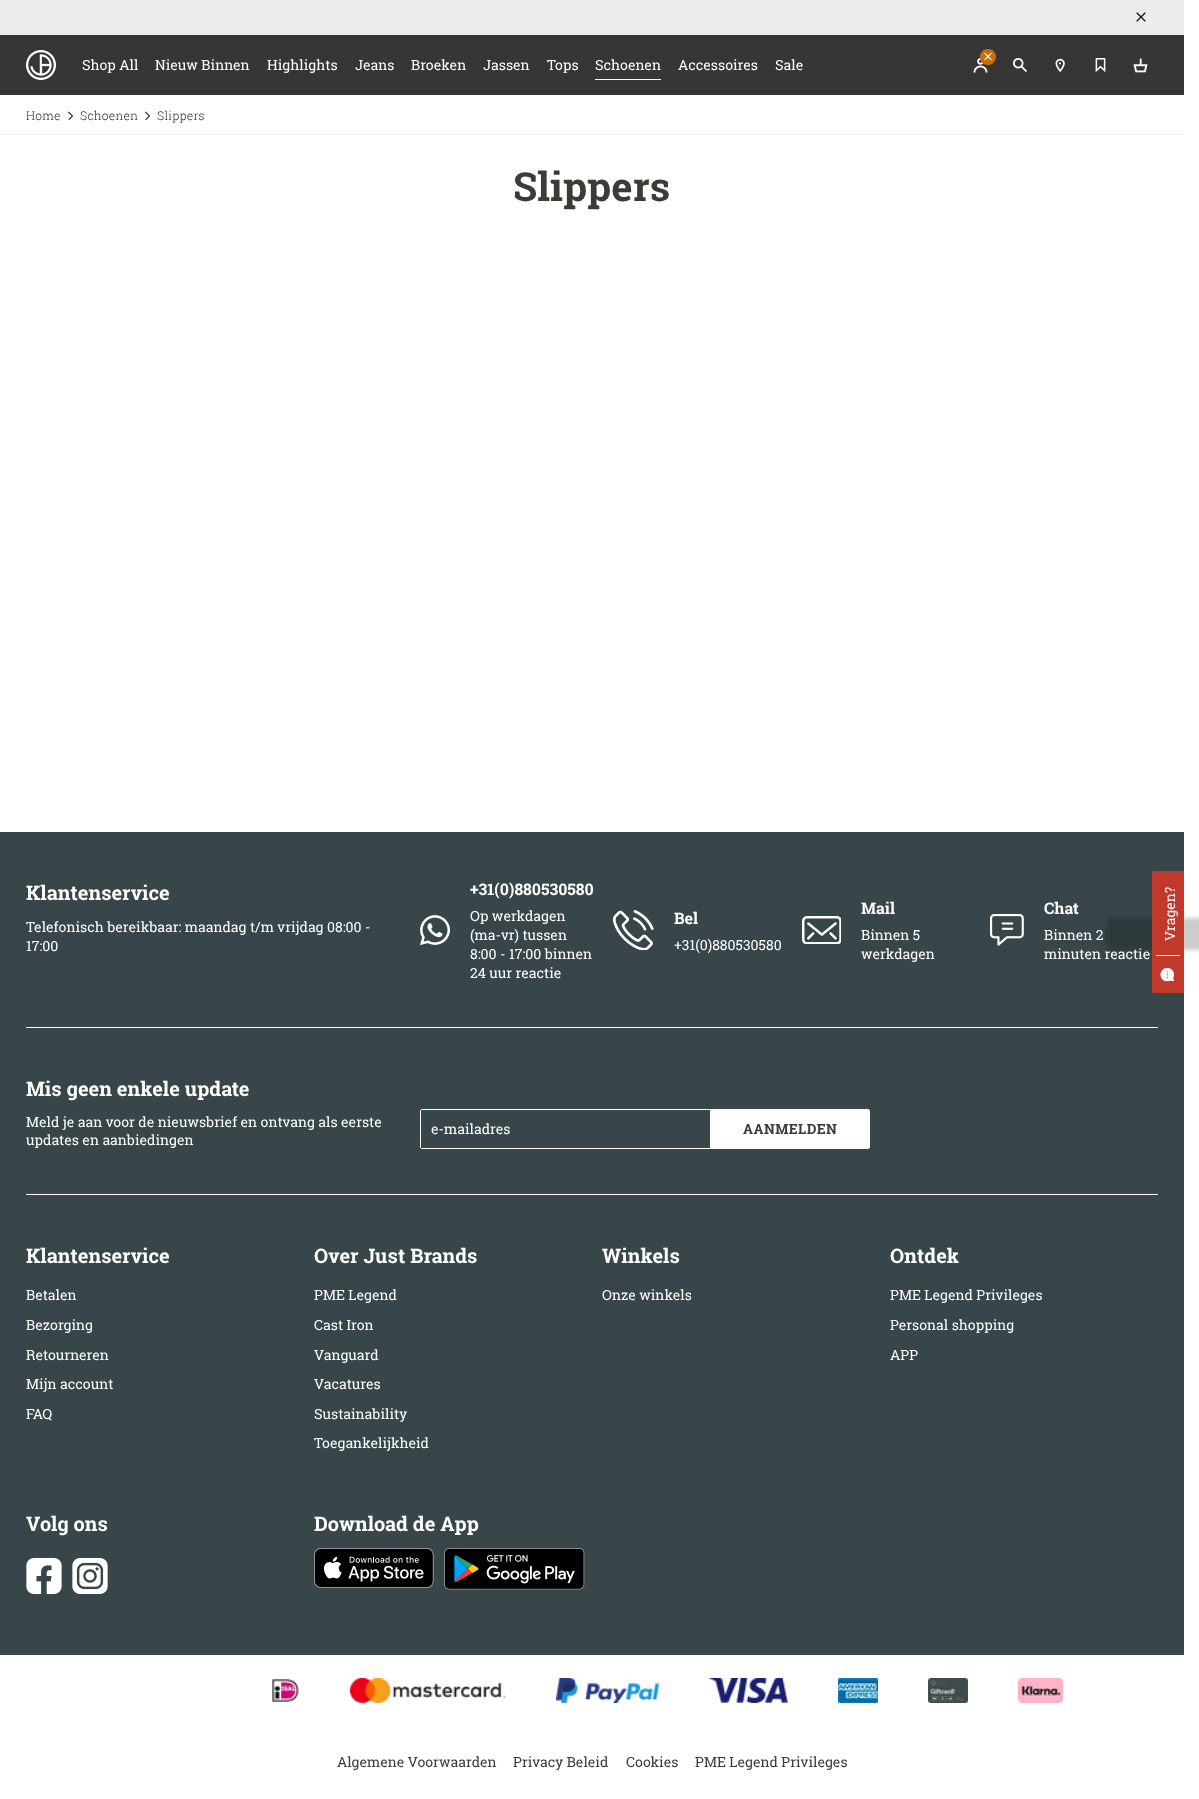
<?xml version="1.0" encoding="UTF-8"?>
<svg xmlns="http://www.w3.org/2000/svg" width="1199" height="1799">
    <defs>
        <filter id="blur1" x="-50%" y="-200%" width="200%" height="500%"><feGaussianBlur stdDeviation="2"/></filter>
    </defs>
    <rect width="100%" height="100%" fill="#FFFFFF"/>
    <rect x="0" y="0" width="1184" height="35" fill="#ECECEC"/>
    <image x="1136" y="12" width="10" height="10" href="img_01.png"/>
    <rect x="0" y="35" width="1184" height="60" fill="#363636"/>
    <image x="26" y="50" width="30" height="30" href="img_02.png"/>
    <text x="82" y="70" font-family="Roboto Slab" font-size="14" fill="#FFFFFF">Shop All</text>
    <text x="155" y="70" font-family="Roboto Slab" font-size="14" fill="#FFFFFF">Nieuw Binnen</text>
    <text x="267" y="70" font-family="Roboto Slab" font-size="14" fill="#FFFFFF">Highlights</text>
    <text x="355" y="70" font-family="Roboto Slab" font-size="14" fill="#FFFFFF">Jeans</text>
    <text x="411" y="70" font-family="Roboto Slab" font-size="14" fill="#FFFFFF">Broeken</text>
    <text x="483" y="70" font-family="Roboto Slab" font-size="14" fill="#FFFFFF">Jassen</text>
    <text x="547" y="70" font-family="Roboto Slab" font-size="14" fill="#FFFFFF">Tops</text>
    <text x="595" y="70" font-family="Roboto Slab" font-size="14" fill="#FFFFFF">Schoenen</text>
    <rect x="595" y="79" width="66" height="1" fill="#F8F8F8"/>
    <text x="678" y="70" font-family="Roboto Slab" font-size="14" fill="#FFFFFF">Accessoires</text>
    <text x="775" y="70" font-family="Roboto Slab" font-size="14" fill="#FFFFFF">Sale</text>
    <image x="973" y="58" width="15" height="15" href="img_04.png"/>
    <circle cx="988" cy="57" r="8" fill="#C66F07"/>
    <image x="984" y="52" width="8" height="9" href="img_03.png"/>
    <image x="1013" y="58" width="14" height="14" href="img_05.png"/>
    <image x="1055" y="58" width="10" height="15" href="img_06.png"/>
    <image x="1095" y="58" width="11" height="15" href="img_07.png"/>
    <image x="1133" y="58" width="15" height="15" href="img_08.png"/>
    <rect x="0" y="134" width="1184" height="1" fill="#ECECEC"/>
    <text x="26" y="120" font-family="Roboto Slab" font-size="12" font-weight="300" letter-spacing="0.25" fill="#1D1D1D">Home</text>
    <image x="68" y="111" width="6" height="9" href="img_09.png"/>
    <text x="80" y="120" font-family="Roboto Slab" font-size="12" font-weight="300" letter-spacing="0.25" fill="#1D1D1D">Schoenen</text>
    <image x="145" y="111" width="6" height="9" href="img_09.png"/>
    <text x="157" y="120" font-family="Roboto Slab" font-size="12" font-weight="300" letter-spacing="0.25" fill="#1D1D1D">Slippers</text>
    <text x="513" y="201" font-family="Roboto Slab" font-size="40" font-weight="700" fill="#3A3D35">Slippers</text>
    <rect x="0" y="832" width="1184" height="823" fill="#384649"/>
    <text x="26" y="900" font-family="Roboto Slab" font-size="20" font-weight="700" fill="#FFFFFF">Klantenservice</text>
    <text font-family="Roboto Slab" font-size="14" fill="#FFFFFF">
        <tspan x="26" y="932">Telefonisch bereikbaar: maandag t/m vrijdag 08:00 -</tspan>
        <tspan x="26" y="951">17:00</tspan>
    </text>
    <image x="420" y="915" width="30" height="31" href="img_10.png"/>
    <text x="470" y="895" font-family="Roboto Slab" font-size="16" font-weight="700" fill="#FFFFFF">+31(0)880530580</text>
    <text font-family="Roboto Slab" font-size="14" fill="#FFFFFF">
        <tspan x="470" y="921">Op werkdagen</tspan>
        <tspan x="470" y="940">(ma-vr) tussen</tspan>
        <tspan x="470" y="959">8:00 - 17:00 binnen</tspan>
        <tspan x="470" y="978">24 uur reactie</tspan>
    </text>
    <image x="613" y="910" width="41" height="40" href="img_11.png"/>
    <text x="674" y="924" font-family="Roboto Slab" font-size="16" font-weight="700" fill="#FFFFFF">Bel</text>
    <text x="674" y="950" font-family="Roboto Slab" font-size="14" fill="#FFFFFF">+31(0)880530580</text>
    <image x="802" y="916" width="39" height="28" href="img_12.png"/>
    <text x="861" y="914" font-family="Roboto Slab" font-size="16" font-weight="700" fill="#FFFFFF">Mail</text>
    <text font-family="Roboto Slab" font-size="14" fill="#FFFFFF">
        <tspan x="861" y="940">Binnen 5</tspan>
        <tspan x="861" y="959">werkdagen</tspan>
    </text>
    <image x="990" y="914" width="34" height="32" href="img_13.png"/>
    <text x="1044" y="914" font-family="Roboto Slab" font-size="16" font-weight="700" fill="#FFFFFF">Chat</text>
    <text font-family="Roboto Slab" font-size="14" fill="#FFFFFF">
        <tspan x="1044" y="940">Binnen 2</tspan>
        <tspan x="1044" y="959">minuten reactie</tspan>
    </text>
    <rect x="26" y="1027" width="1132" height="1" fill="#FFFFFF"/>
    <text x="26" y="1096" font-family="Roboto Slab" font-size="20" font-weight="700" fill="#FFFFFF">Mis geen enkele update</text>
    <text font-family="Roboto Slab" font-size="14" fill="#FFFFFF">
        <tspan x="26" y="1127">Meld je aan voor de nieuwsbrief en ontvang als eerste</tspan>
        <tspan x="26" y="1145">updates en aanbiedingen</tspan>
    </text>
    <rect x="421" y="1109" width="289" height="1" fill="#FFFFFF"/>
    <rect x="421" y="1148" width="289" height="1" fill="#FFFFFF"/>
    <rect x="420" y="1110" width="1" height="38" fill="#FFFFFF"/>
    <text x="431" y="1134" font-family="Roboto Slab" font-size="14" fill="#FFFFFF">e-mailadres</text>
    <path d="M 710.5 1109.5 H 868 C 869 1109.5 869.5 1110 869.5 1111 V 1147 C 869.5 1148 869 1148.5 868 1148.5 H 710.5 Z" fill="#FFFFFF" stroke="#FFFFFF"/>
    <text x="743" y="1134" font-family="Roboto Slab" font-size="14" font-weight="700" letter-spacing="0.4" fill="#3A3D35">AANMELDEN</text>
    <rect x="26" y="1194" width="1132" height="1" fill="#FFFFFF"/>
    <text x="26" y="1263" font-family="Roboto Slab" font-size="20" font-weight="700" fill="#FFFFFF">Klantenservice</text>
    <text x="26" y="1300" font-family="Roboto Slab" font-size="14" fill="#FFFFFF">Betalen</text>
    <text x="26" y="1330" font-family="Roboto Slab" font-size="14" fill="#FFFFFF">Bezorging</text>
    <text x="26" y="1360" font-family="Roboto Slab" font-size="14" fill="#FFFFFF">Retourneren</text>
    <text x="26" y="1389" font-family="Roboto Slab" font-size="14" fill="#FFFFFF">Mijn account</text>
    <text x="26" y="1419" font-family="Roboto Slab" font-size="14" fill="#FFFFFF">FAQ</text>
    <text x="314" y="1263" font-family="Roboto Slab" font-size="20" font-weight="700" fill="#FFFFFF">Over Just Brands</text>
    <text x="314" y="1300" font-family="Roboto Slab" font-size="14" fill="#FFFFFF">PME Legend</text>
    <text x="314" y="1330" font-family="Roboto Slab" font-size="14" fill="#FFFFFF">Cast Iron</text>
    <text x="314" y="1360" font-family="Roboto Slab" font-size="14" fill="#FFFFFF">Vanguard</text>
    <text x="314" y="1389" font-family="Roboto Slab" font-size="14" fill="#FFFFFF">Vacatures</text>
    <text x="314" y="1419" font-family="Roboto Slab" font-size="14" fill="#FFFFFF">Sustainability</text>
    <text x="314" y="1448" font-family="Roboto Slab" font-size="14" fill="#FFFFFF">Toegankelijkheid</text>
    <text x="602" y="1263" font-family="Roboto Slab" font-size="20" font-weight="700" fill="#FFFFFF">Winkels</text>
    <text x="602" y="1300" font-family="Roboto Slab" font-size="14" fill="#FFFFFF">Onze winkels</text>
    <text x="890" y="1263" font-family="Roboto Slab" font-size="20" font-weight="700" fill="#FFFFFF">Ontdek</text>
    <text x="890" y="1300" font-family="Roboto Slab" font-size="14" fill="#FFFFFF">PME Legend Privileges</text>
    <text x="890" y="1330" font-family="Roboto Slab" font-size="14" fill="#FFFFFF">Personal shopping</text>
    <text x="890" y="1360" font-family="Roboto Slab" font-size="14" fill="#FFFFFF">APP</text>
    <text x="26" y="1531" font-family="Roboto Slab" font-size="20" font-weight="700" fill="#FFFFFF">Volg ons</text>
    <image x="26" y="1558" width="36" height="36" href="img_14.png"/>
    <image x="72" y="1558" width="36" height="36" href="img_15.png"/>
    <text x="314" y="1531" font-family="Roboto Slab" font-size="20" font-weight="700" fill="#FFFFFF">Download de App</text>
    <image x="314" y="1548" width="120" height="40" href="img_16.png"/>
    <image x="444" y="1548" width="141" height="42" href="img_17.png"/>
    <image x="272" y="1679" width="27" height="24" href="img_18.png"/>
    <image x="350" y="1678" width="156" height="25" href="img_19.png"/>
    <image x="556" y="1678" width="103" height="25" href="img_20.png"/>
    <image x="709" y="1678" width="79" height="25" href="img_21.png"/>
    <image x="838" y="1678" width="40" height="25" href="img_22.png"/>
    <image x="928" y="1678" width="40" height="25" href="img_23.png"/>
    <image x="1018" y="1678" width="45" height="25" href="img_24.png"/>
    <text x="337" y="1767" font-family="Roboto Slab" font-size="14" fill="#3A3D35">Algemene Voorwaarden</text>
    <text x="513" y="1767" font-family="Roboto Slab" font-size="14" fill="#3A3D35">Privacy Beleid</text>
    <text x="626" y="1767" font-family="Roboto Slab" font-size="14" fill="#3A3D35">Cookies</text>
    <text x="695" y="1767" font-family="Roboto Slab" font-size="14" fill="#3A3D35">PME Legend Privileges</text>
    <rect x="1107" y="918" width="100" height="32" rx="2" fill="#000000" fill-opacity="0.2" filter="url(#blur1)"/>
    <path d="M 1152 991 V 873 C 1152 872 1153 871 1154 871 H 1184 V 993 H 1154 C 1153 993 1152 992 1152 991 Z" fill="#C0392B"/>
    <text x="1175" y="941" transform="rotate(-90 1175 941)" font-family="Roboto Slab" font-size="14" fill="#FFFFFF">Vragen?</text>
    <rect x="1156" y="955" width="24" height="1" fill="#FFFFFF"/>
    <image x="1160" y="967" width="14" height="15" href="img_25.png"/>
</svg>
